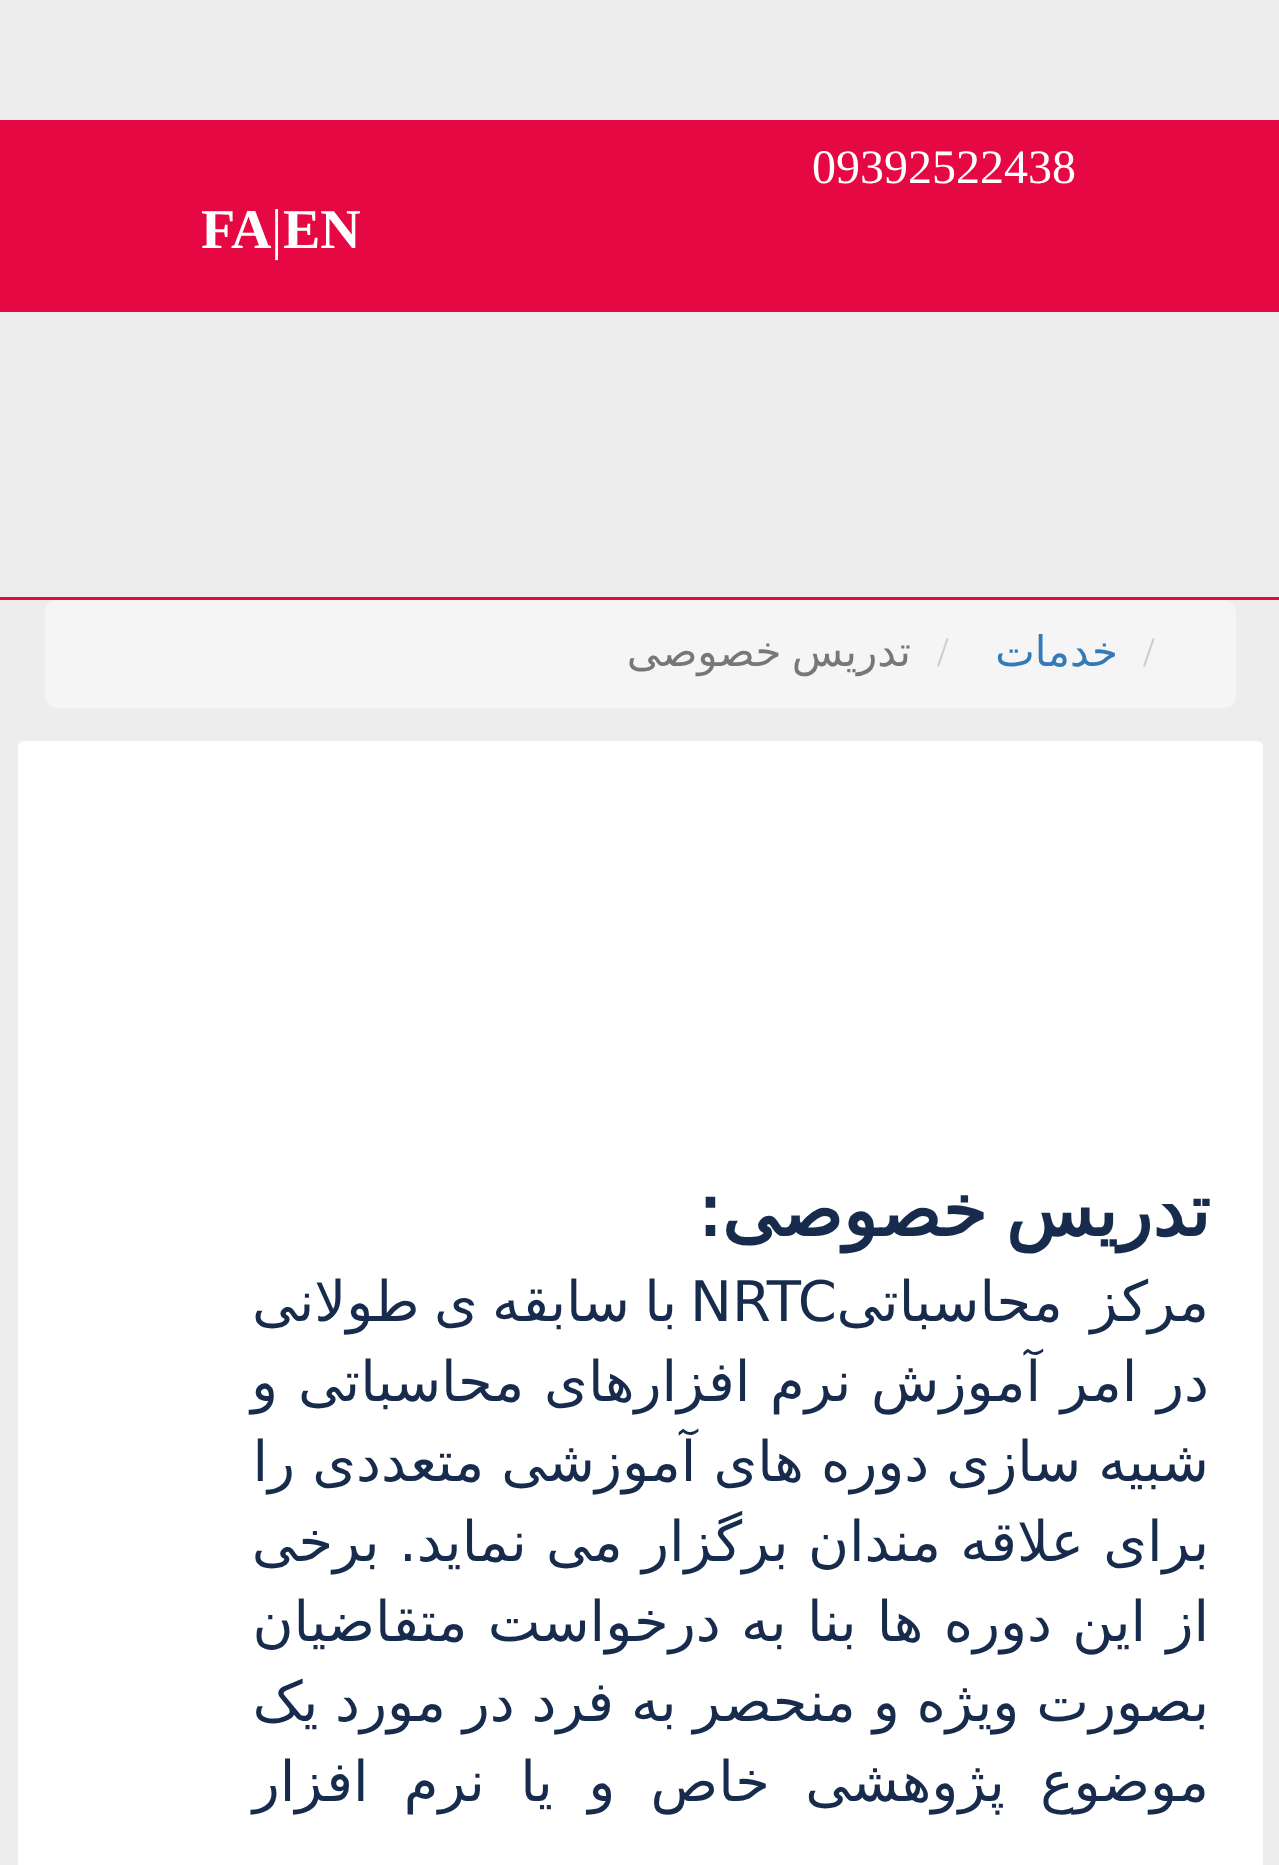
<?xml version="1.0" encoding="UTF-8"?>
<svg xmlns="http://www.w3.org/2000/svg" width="1279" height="1865">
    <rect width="100%" height="100%" fill="#EDEDED"/>
    <rect x="0" y="120" width="1279" height="192" fill="#E60843"/>
    <text x="812" y="183" font-family="Liberation Serif" font-size="48" fill="#FFFFFF">09392522438</text>
    <text x="283" y="248" font-family="Liberation Serif" font-size="56" font-weight="700" fill="#FFFFFF">EN</text>
    <text x="271" y="248" font-family="Liberation Serif" font-size="56" fill="#FFFFFF">|</text>
    <text x="201" y="248" font-family="Liberation Serif" font-size="56" font-weight="700" fill="#FFFFFF">FA</text>
    <rect x="0" y="597" width="1279" height="3" fill="#E60843"/>
    <rect x="45" y="600" width="1191" height="108" rx="12" fill="#F5F5F5"/>
    <text x="1143" y="666" font-family="Liberation Serif" font-size="42" fill="#CCCCCC">/</text>
    <text x="1118" y="666" font-family="DejaVu Sans" font-size="42" direction="rtl" fill="#337AB7">خدمات</text>
    <text x="937" y="666" font-family="Liberation Serif" font-size="42" fill="#CCCCCC">/</text>
    <text x="911" y="666" word-spacing="-3" font-family="DejaVu Sans" font-size="42" direction="rtl" fill="#777777">تدریس خصوصی</text>
    <rect x="18" y="741" width="1245" height="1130" rx="6" fill="#FFFFFF"/>
    <text x="1210" y="1236" word-spacing="-4" font-family="DejaVu Sans" font-size="72" font-weight="700" direction="rtl" fill="#172B4D">تدریس خصوصی:</text>
    <text x="1209" y="1321" word-spacing="10" font-family="DejaVu Sans" font-size="56" direction="rtl" fill="#172B4D">مرکز محاسباتی</text>
    <text x="690" y="1321" font-family="DejaVu Sans" font-size="56" fill="#172B4D">NRTC</text>
    <text x="677" y="1321" word-spacing="-3.5" font-family="DejaVu Sans" font-size="56" direction="rtl" fill="#172B4D">با سابقه ی طولانی</text>
    <text font-family="DejaVu Sans" font-size="56" direction="rtl" fill="#172B4D">
        <tspan x="1209" y="1401" word-spacing="2">در امر آموزش نرم افزارهای محاسباتی و</tspan>
        <tspan x="1209" y="1481" word-spacing="-0.75">شبیه سازی دوره های آموزشی متعددی را</tspan>
        <tspan x="1209" y="1561" word-spacing="1.5">برای علاقه مندان برگزار می نماید. برخی</tspan>
        <tspan x="1209" y="1641" word-spacing="2.5">از این دوره ها بنا به درخواست متقاضیان</tspan>
        <tspan x="1209" y="1721" word-spacing="-1">بصورت ویژه و منحصر به فرد در مورد یک</tspan>
        <tspan x="1209" y="1801" word-spacing="17.5">موضوع پژوهشی خاص و یا نرم افزار</tspan>
    </text>
</svg>
